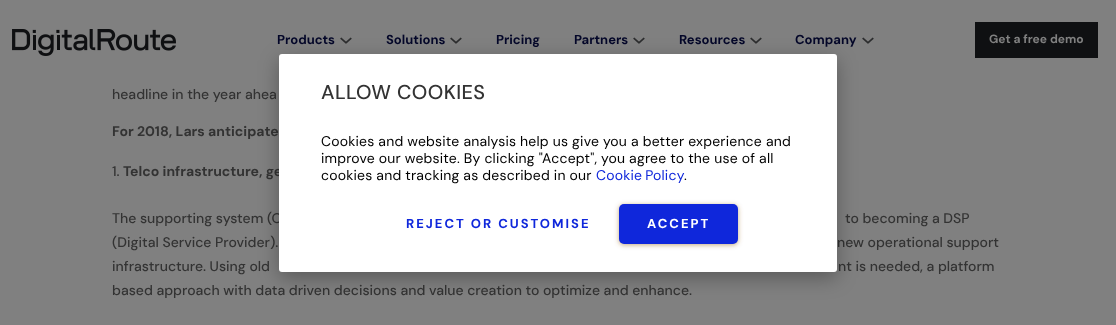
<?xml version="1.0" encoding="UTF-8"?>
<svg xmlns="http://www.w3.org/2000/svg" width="1116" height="325">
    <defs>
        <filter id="blur1" x="-50%" y="-200%" width="200%" height="500%"><feGaussianBlur stdDeviation="10"/></filter>
        <filter id="blur2" x="-50%" y="-200%" width="200%" height="500%"><feGaussianBlur stdDeviation="2.5"/></filter>
    </defs>
    <rect width="100%" height="100%" fill="#808080"/>
    <image x="12" y="29" width="164" height="27" href="img_01.png"/>
    <text x="277" y="44" font-family="DM Sans" font-size="13" font-weight="700" fill="#030628">Products</text>
    <image x="340" y="37" width="12" height="7" href="img_02.png"/>
    <text x="386" y="44" font-family="DM Sans" font-size="13" font-weight="700" fill="#030628">Solutions</text>
    <image x="450" y="37" width="12" height="7" href="img_02.png"/>
    <text x="496" y="44" font-family="DM Sans" font-size="13" font-weight="700" fill="#030628">Pricing</text>
    <text x="574" y="44" font-family="DM Sans" font-size="13" font-weight="700" fill="#030628">Partners</text>
    <image x="633" y="37" width="12" height="7" href="img_02.png"/>
    <text x="679" y="44" font-family="DM Sans" font-size="13" font-weight="700" fill="#030628">Resources</text>
    <image x="750" y="37" width="12" height="7" href="img_02.png"/>
    <text x="795" y="44" font-family="DM Sans" font-size="13" font-weight="700" fill="#030628">Company</text>
    <image x="862" y="37" width="12" height="7" href="img_02.png"/>
    <rect x="975" y="22" width="123" height="36" fill="#0F1012"/>
    <text x="989" y="43" font-family="DM Sans" font-size="12" font-weight="700" fill="#808080">Get a free demo</text>
    <text x="112" y="99" font-family="DM Sans" font-size="14" font-weight="500" fill="#333333">headline in the year ahea</text>
    <text x="112" y="136" font-family="DM Sans" font-size="14" font-weight="700" fill="#333333">For 2018, Lars anticipate</text>
    <text x="112" y="176" font-family="DM Sans" font-size="14" font-weight="500" fill="#333333">1.</text>
    <text x="123" y="176" font-family="DM Sans" font-size="14" font-weight="700" fill="#333333">Telco infrastructure, ge</text>
    <text x="112" y="223" font-family="DM Sans" font-size="14" font-weight="500" fill="#333333">The supporting system (O</text>
    <text x="845" y="223" font-family="DM Sans" font-size="14" font-weight="500" fill="#333333">to becoming a DSP</text>
    <text x="112" y="247" font-family="DM Sans" font-size="14" font-weight="500" fill="#333333">(Digital Service Provider).</text>
    <text x="837" y="247" font-family="DM Sans" font-size="14" font-weight="500" fill="#333333">new operational support</text>
    <text x="112" y="271" font-family="DM Sans" font-size="14" font-weight="500" fill="#333333">infrastructure. Using old</text>
    <text x="838" y="271" font-family="DM Sans" font-size="14" font-weight="500" fill="#333333">nt is needed, a platform</text>
    <text x="112" y="295" font-family="DM Sans" font-size="14" font-weight="500" fill="#333333">based approach with data driven decisions and value creation to optimize and enhance.</text>
    <rect x="279" y="60" width="558" height="218" rx="3" fill="#000000" fill-opacity="0.3" filter="url(#blur1)"/>
    <rect x="279" y="54" width="558" height="218" rx="3" fill="#FFFFFF"/>
    <text x="321" y="99" font-family="DM Sans" font-size="20" font-weight="500" letter-spacing="0.4" fill="#333333">ALLOW COOKIES</text>
    <text font-family="DM Sans" font-size="14" letter-spacing="0.2" fill="#000000">
        <tspan x="321" y="146">Cookies and website analysis help us give you a better experience and</tspan>
        <tspan x="321" y="163">improve our website. By clicking "Accept", you agree to the use of all</tspan>
        <tspan x="321" y="180">cookies and tracking as described in our</tspan>
    </text>
    <text x="596" y="180" word-spacing="-1" font-family="DM Sans" font-size="14" letter-spacing="0.2" fill="#0F27DB">Cookie Policy</text>
    <text x="684" y="180" font-family="DM Sans" font-size="14" letter-spacing="0.2" fill="#000000">.</text>
    <text x="406" y="228" font-family="DM Sans" font-size="13" font-weight="700" letter-spacing="2" fill="#0F27DB">REJECT OR CUSTOMISE</text>
    <rect x="619" y="205" width="119" height="40" rx="5" fill="#8B5300" fill-opacity="0.5" filter="url(#blur2)"/>
    <rect x="619" y="204" width="119" height="40" rx="5" fill="#0F27DB"/>
    <text x="647" y="228" font-family="DM Sans" font-size="13" font-weight="700" letter-spacing="2" fill="#FFFFFF">ACCEPT</text>
</svg>
